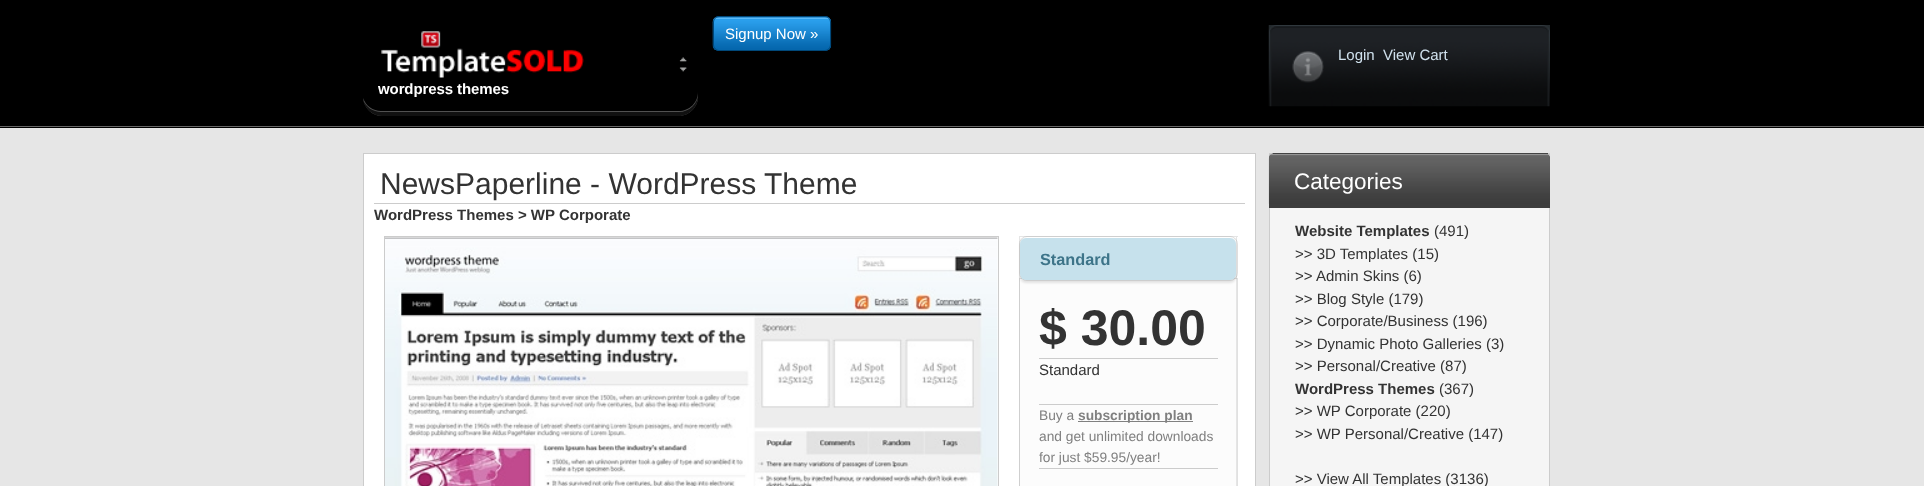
<?xml version="1.0" encoding="UTF-8"?>
<svg xmlns="http://www.w3.org/2000/svg" width="1924" height="486">
    <defs>
        <filter id="blur1" x="-50%" y="-200%" width="200%" height="500%"><feGaussianBlur stdDeviation="1"/></filter>
    </defs>
    <rect width="100%" height="100%" fill="#E6E6E6"/>
    <rect x="0" y="0" width="1924" height="128" fill="#000000"/>
    <rect x="0" y="126" width="1924" height="1" fill="#666666"/>
    <rect x="713" y="16" width="118" height="35" rx="6" fill="#0567AD"/>
    <image x="712" y="17" width="120" height="33" href="img_01.png"/>
    <rect x="713.5" y="16.5" width="117" height="34" rx="5.5" fill="none" stroke="#00487A"/>
    <text x="725" y="39" font-family="Liberation Sans" font-size="15" fill="#FFFFFF">Signup Now »</text>
    <image x="679" y="57" width="8" height="15" href="img_02.png"/>
    <path d="M 363 98 C 364 108 372 116 382 116 H 679 C 689 116 698 107 698 97 V 92 C 698 103 689 111 679 111 H 381 C 373 111 366 106 363 98 Z" fill="#515151"/>
    <path d="M 363 100 C 365 109 373 116 382 116 H 679 C 689 116 698 107 698 97 V 94 C 698 104 689 112 679 112 H 381 C 373 112 366 107 363 100 Z" fill="#111111"/>
    <image x="381" y="31" width="203" height="47" href="img_03.png"/>
    <text x="378" y="94" font-family="Liberation Sans" font-size="15" font-weight="700" letter-spacing="-0.1" fill="#FFFFFF">wordpress themes</text>
    <image x="1268" y="25" width="282" height="82" href="img_04.png"/>
    <text x="1338" y="60" font-family="Liberation Sans" font-size="15" fill="#D0E1ED">Login</text>
    <text x="1383" y="60" font-family="Liberation Sans" font-size="15" fill="#D0E1ED">View Cart</text>
    <rect x="363.5" y="153.5" width="892" height="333" fill="#FFFFFF" stroke="#CCCCCC"/>
    <rect x="374" y="203" width="871" height="1" fill="#CCCCCC"/>
    <text x="380" y="194" font-family="Liberation Sans" font-size="30" fill="#333333">NewsPaperline - WordPress Theme</text>
    <text x="374" y="220" font-family="Liberation Sans" font-size="15" font-weight="700" fill="#333333">WordPress Themes &gt; WP Corporate</text>
    <rect x="384.5" y="236.5" width="614" height="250" fill="none" stroke="#CCCCCC"/>
    <image x="385" y="237" width="613" height="249" href="img_05.png"/>
    <rect x="1020" y="238" width="216" height="41" fill="#F9F9F9"/>
    <rect x="1019" y="236" width="219" height="1" fill="#E5E5E5"/>
    <rect x="1236" y="236" width="1" height="250" fill="#E5E5E5"/>
    <rect x="1019" y="236" width="1" height="250" fill="#E5E5E5"/>
    <rect x="1019.5" y="278.5" width="218" height="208" fill="none" stroke="#9B9B9B" stroke-opacity="0.3"/>
    <rect x="1020" y="279" width="216" height="207" fill="#FCFCFC"/>
    <rect x="1020" y="240" width="216" height="43" rx="6" fill="#000000" fill-opacity="0.1" filter="url(#blur1)"/>
    <rect x="1019.5" y="236.5" width="218" height="44" rx="7.5" fill="none" stroke="#9B9B9B" stroke-opacity="0.3"/>
    <rect x="1020" y="238" width="216" height="42" rx="6" fill="#C6E1EC"/>
    <text x="1040" y="265" font-family="Liberation Sans" font-size="16.25" font-weight="700" fill="#3D7489">Standard</text>
    <rect x="1039" y="358" width="179" height="1" fill="#CCCCCC"/>
    <text x="1039" y="345" font-family="Liberation Sans" font-size="50" font-weight="700" fill="#333333">$ 30.00</text>
    <text x="1039" y="375" font-family="Liberation Sans" font-size="15" fill="#333333">Standard</text>
    <rect x="1039" y="404" width="179" height="1" fill="#CCCCCC"/>
    <rect x="1039" y="468" width="179" height="1" fill="#CCCCCC"/>
    <text x="1039" y="420" font-family="Liberation Sans" font-size="13.75" fill="#808080">Buy a</text>
    <rect x="1078" y="421" width="115" height="1" fill="#808080"/>
    <text x="1078" y="420" font-family="Liberation Sans" font-size="13.75" font-weight="700" fill="#808080">subscription plan</text>
    <text font-family="Liberation Sans" font-size="13.75" fill="#808080">
        <tspan x="1039" y="441">and get unlimited downloads</tspan>
        <tspan x="1039" y="462">for just $59.95/year!</tspan>
    </text>
    <rect x="1270" y="154" width="279" height="2" fill="#FFFFFF"/>
    <rect x="1269.5" y="153.5" width="280" height="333" fill="none" stroke="#CCCCCC"/>
    <path d="M 1275 153 H 1544 C 1547.5 153 1550 155.5 1550 159 V 208 H 1269 V 159 C 1269 155.5 1271.5 153 1275 153 Z" fill="#3D3D3D"/>
    <image x="1268" y="153" width="282" height="51" href="img_06.png"/>
    <rect x="1273" y="153" width="275" height="1" fill="#444444"/>
    <text x="1294" y="189" font-family="Liberation Sans" font-size="22.5" fill="#FFFFFF">Categories</text>
    <rect x="1270" y="208" width="279" height="278" fill="#F5F5F5"/>
    <text x="1295" y="236" font-family="Liberation Sans" font-size="15" font-weight="700" fill="#333333">Website Templates</text>
    <text x="1434" y="236" font-family="Liberation Sans" font-size="15" fill="#333333">(491)</text>
    <text font-family="Liberation Sans" font-size="15" fill="#333333">
        <tspan x="1295" y="259">&gt;&gt; 3D Templates (15)</tspan>
        <tspan x="1295" y="281">&gt;&gt;</tspan>
    </text>
    <text x="1316" y="281" font-family="Liberation Sans" font-size="15" fill="#333333">Admin Skins (6)</text>
    <text font-family="Liberation Sans" font-size="15" fill="#333333">
        <tspan x="1295" y="304">&gt;&gt; Blog Style (179)</tspan>
        <tspan x="1295" y="326">&gt;&gt; Corporate/Business (196)</tspan>
        <tspan x="1295" y="349">&gt;&gt; Dynamic Photo Galleries (3)</tspan>
        <tspan x="1295" y="371">&gt;&gt; Personal/Creative (87)</tspan>
    </text>
    <text x="1295" y="394" font-family="Liberation Sans" font-size="15" font-weight="700" fill="#333333">WordPress Themes</text>
    <text x="1439" y="394" font-family="Liberation Sans" font-size="15" fill="#333333">(367)</text>
    <text font-family="Liberation Sans" font-size="15" fill="#333333">
        <tspan x="1295" y="416">&gt;&gt; WP Corporate (220)</tspan>
        <tspan x="1295" y="439">&gt;&gt; WP Personal/Creative (147)</tspan>
    </text>
    <text x="1295" y="484" font-family="Liberation Sans" font-size="15" fill="#333333">&gt;&gt; View All Templates (3136)</text>
</svg>
